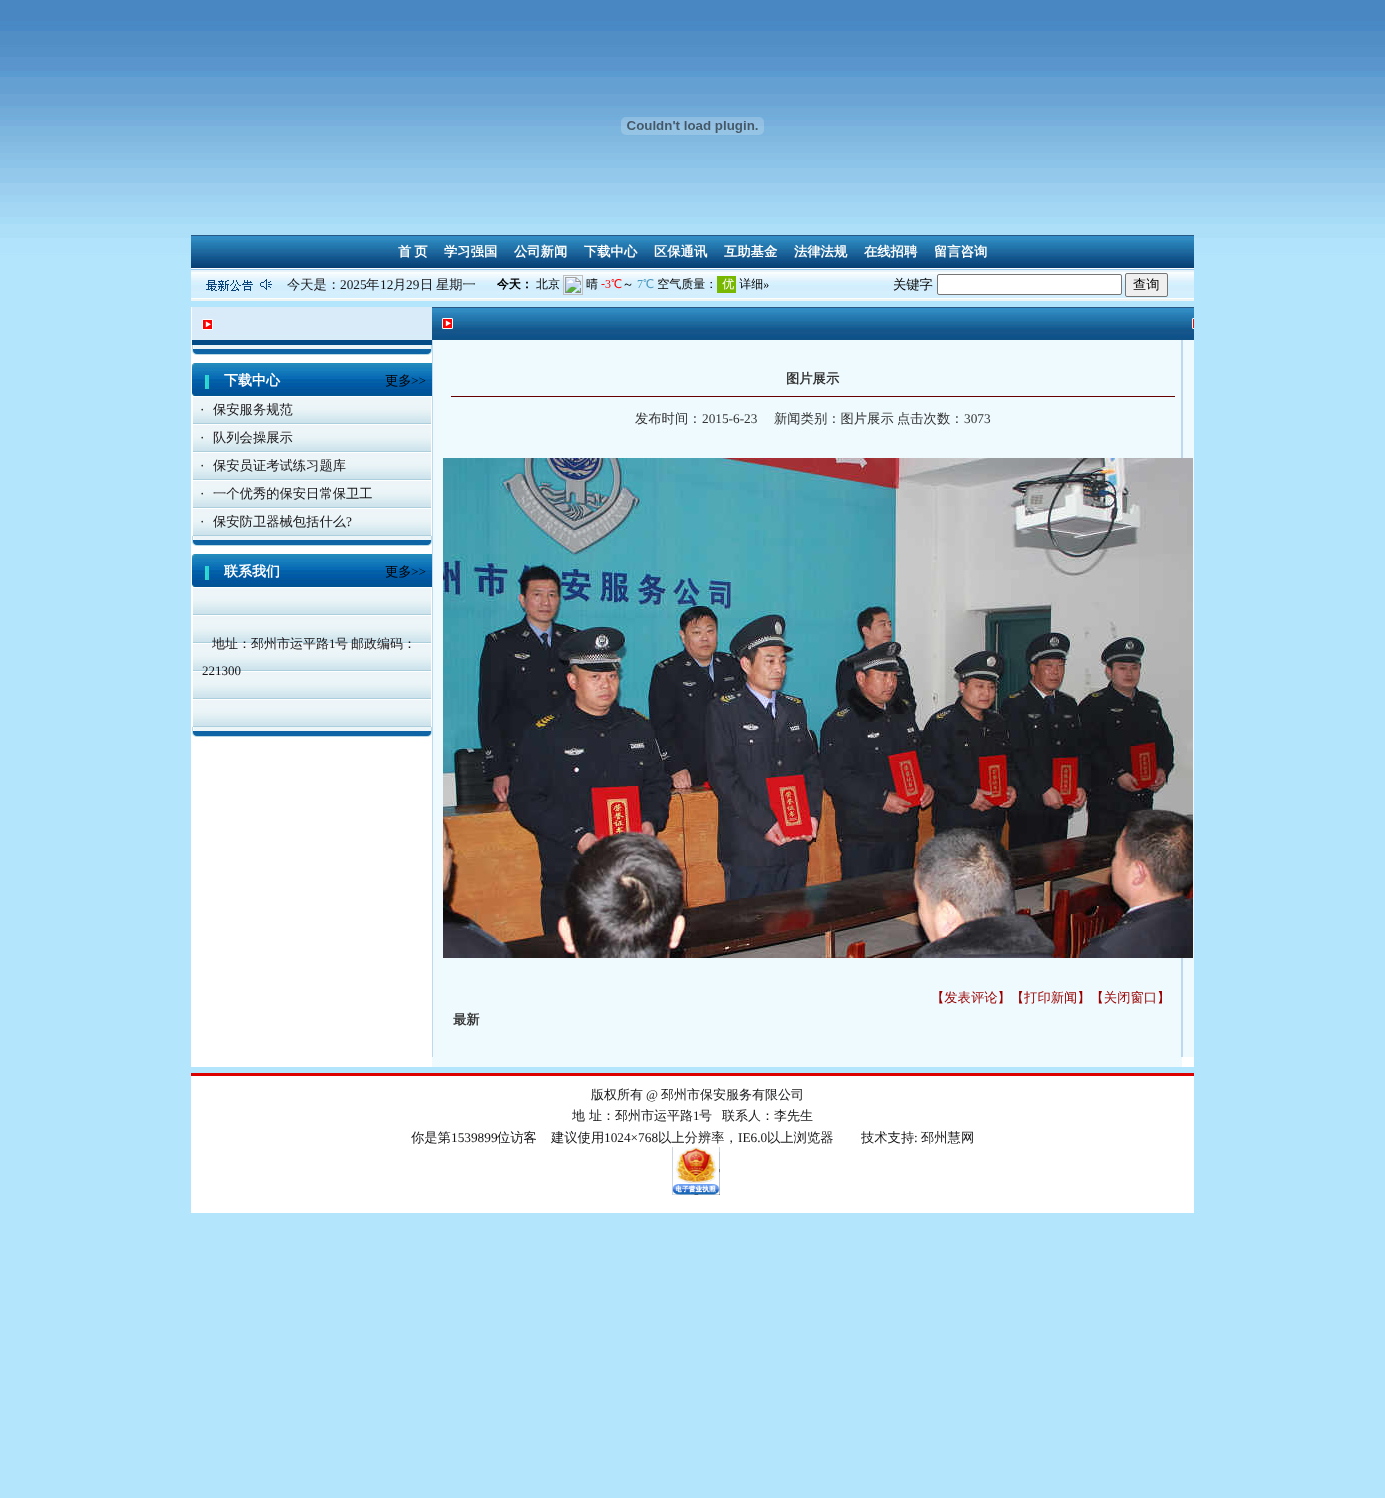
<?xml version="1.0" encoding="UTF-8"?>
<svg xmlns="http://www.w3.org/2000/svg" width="1385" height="1498">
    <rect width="100%" height="100%" fill="#FFFFFF"/>
    <image x="0" y="0" width="1385" height="1498" href="img_01.png"/>
    <image x="621" y="117" width="143" height="18" href="img_02.png"/>
    <image x="191" y="235" width="1003" height="33" href="img_03.png"/>
    <text x="398" y="256" word-spacing="-1" font-family="WenQuanYi Zen Hei" font-size="13.3" font-weight="700" fill="#FFFFFF">首 页</text>
    <text x="444" y="256" font-family="WenQuanYi Zen Hei" font-size="13.3" font-weight="700" fill="#FFFFFF">学习强国</text>
    <text x="514" y="256" font-family="WenQuanYi Zen Hei" font-size="13.3" font-weight="700" fill="#FFFFFF">公司新闻</text>
    <text x="584" y="256" font-family="WenQuanYi Zen Hei" font-size="13.3" font-weight="700" fill="#FFFFFF">下载中心</text>
    <text x="654" y="256" font-family="WenQuanYi Zen Hei" font-size="13.3" font-weight="700" fill="#FFFFFF">区保通讯</text>
    <text x="724" y="256" font-family="WenQuanYi Zen Hei" font-size="13.3" font-weight="700" fill="#FFFFFF">互助基金</text>
    <text x="794" y="256" font-family="WenQuanYi Zen Hei" font-size="13.3" font-weight="700" fill="#FFFFFF">法律法规</text>
    <text x="864" y="256" font-family="WenQuanYi Zen Hei" font-size="13.3" font-weight="700" fill="#FFFFFF">在线招聘</text>
    <text x="934" y="256" font-family="WenQuanYi Zen Hei" font-size="13.3" font-weight="700" fill="#FFFFFF">留言咨询</text>
    <image x="191" y="268" width="1003" height="33" href="img_04.png"/>
    <text x="287" y="289" font-family="WenQuanYi Zen Hei" font-size="13.3" font-weight="500" fill="#171518">今天是：</text>
    <text x="340" y="289" font-family="Liberation Serif" font-size="13.3" fill="#171518">2025</text>
    <text x="366" y="289" font-family="WenQuanYi Zen Hei" font-size="13.3" font-weight="500" fill="#171518">年</text>
    <text x="380" y="289" font-family="Liberation Serif" font-size="13.3" fill="#171518">12</text>
    <text x="393" y="289" font-family="WenQuanYi Zen Hei" font-size="13.3" font-weight="500" fill="#171518">月</text>
    <text x="406" y="289" font-family="Liberation Serif" font-size="13.3" fill="#171518">29</text>
    <text x="420" y="289" font-family="WenQuanYi Zen Hei" font-size="13.3" font-weight="500" fill="#171518">日</text>
    <text x="436" y="289" font-family="WenQuanYi Zen Hei" font-size="13.3" font-weight="500" fill="#171518">星期一</text>
    <image x="497" y="275" width="272" height="20" href="img_05.png"/>
    <text x="893" y="289" font-family="WenQuanYi Zen Hei" font-size="13.3" font-weight="500" fill="#000000">关键字</text>
    <rect x="937.5" y="274.5" width="184" height="20" rx="1.5" fill="#FFFFFF" stroke="#767676"/>
    <rect x="1125.5" y="273.5" width="42" height="23" rx="1.5" fill="#EFEFEF" stroke="#767676"/>
    <text x="1133" y="289" font-family="WenQuanYi Zen Hei" font-size="13.3" font-weight="500" fill="#000000">查询</text>
    <rect x="191" y="307" width="1003" height="760" fill="#FFFFFF"/>
    <image x="192" y="307" width="240" height="38" href="img_06.png"/>
    <image x="192" y="345" width="240" height="10" href="img_07.png"/>
    <image x="192" y="363" width="240" height="33" href="img_08.png"/>
    <text x="224" y="385" font-family="WenQuanYi Zen Hei" font-size="14" font-weight="700" fill="#FFFFFF">下载中心</text>
    <text x="385" y="385" font-family="WenQuanYi Zen Hei" font-size="13.3" font-weight="500" fill="#000000">更多</text>
    <text x="411" y="385" font-family="Liberation Serif" font-size="13.3" fill="#000000">&gt;&gt;</text>
    <image x="193" y="397" width="238" height="27" href="img_09.png"/>
    <text x="200" y="414" font-family="Liberation Serif" font-size="13.3" fill="#171518">·</text>
    <text x="213" y="414" font-family="WenQuanYi Zen Hei" font-size="13.3" font-weight="500" fill="#171518">保安服务规范</text>
    <image x="193" y="425" width="238" height="27" href="img_09.png"/>
    <text x="200" y="442" font-family="Liberation Serif" font-size="13.3" fill="#171518">·</text>
    <text x="213" y="442" font-family="WenQuanYi Zen Hei" font-size="13.3" font-weight="500" fill="#171518">队列会操展示</text>
    <image x="193" y="453" width="238" height="27" href="img_09.png"/>
    <text x="200" y="470" font-family="Liberation Serif" font-size="13.3" fill="#171518">·</text>
    <text x="213" y="470" font-family="WenQuanYi Zen Hei" font-size="13.3" font-weight="500" fill="#171518">保安员证考试练习题库</text>
    <image x="193" y="481" width="238" height="27" href="img_09.png"/>
    <text x="200" y="498" font-family="Liberation Serif" font-size="13.3" fill="#171518">·</text>
    <text x="213" y="498" font-family="WenQuanYi Zen Hei" font-size="13.3" font-weight="500" fill="#171518">一个优秀的保安日常保卫工</text>
    <image x="193" y="509" width="238" height="27" href="img_09.png"/>
    <text x="200" y="526" font-family="Liberation Serif" font-size="13.3" fill="#171518">·</text>
    <text x="213" y="526" font-family="WenQuanYi Zen Hei" font-size="13.3" font-weight="500" fill="#171518">保安防卫器械包括什么</text>
    <text x="346" y="526" font-family="Liberation Serif" font-size="13.3" fill="#171518">?</text>
    <image x="192" y="536" width="240" height="10" href="img_07.png"/>
    <image x="192" y="554" width="240" height="33" href="img_08.png"/>
    <text x="224" y="576" font-family="WenQuanYi Zen Hei" font-size="14" font-weight="700" fill="#FFFFFF">联系我们</text>
    <text x="385" y="576" font-family="WenQuanYi Zen Hei" font-size="13.3" font-weight="500" fill="#000000">更多</text>
    <text x="411" y="576" font-family="Liberation Serif" font-size="13.3" fill="#000000">&gt;&gt;</text>
    <image x="193" y="588" width="238" height="139" href="img_10.png"/>
    <text x="212" y="648" font-family="WenQuanYi Zen Hei" font-size="13" font-weight="500" fill="#171518">地址：邳州市运平路</text>
    <text x="329" y="648" font-family="Liberation Serif" font-size="13" fill="#171518">1</text>
    <text x="335" y="648" font-family="WenQuanYi Zen Hei" font-size="13" font-weight="500" fill="#171518">号</text>
    <text x="351" y="648" font-family="WenQuanYi Zen Hei" font-size="13" font-weight="500" fill="#171518">邮政编码：</text>
    <text x="202" y="675" font-family="Liberation Serif" font-size="13" fill="#171518">221300</text>
    <image x="192" y="727" width="240" height="10" href="img_07.png"/>
    <image x="432" y="307" width="762" height="45" href="img_11.png"/>
    <image x="432" y="352" width="762" height="705" href="img_12.png"/>
    <text x="786" y="383" font-family="WenQuanYi Zen Hei" font-size="13.3" font-weight="700" fill="#333333">图片展示</text>
    <rect x="451" y="396" width="724" height="1" fill="#660000"/>
    <text x="635" y="423" font-family="WenQuanYi Zen Hei" font-size="13.3" font-weight="500" fill="#333333">发布时间：</text>
    <text x="702" y="423" font-family="Liberation Serif" font-size="13.3" fill="#333333">2015-6-23</text>
    <text x="774" y="423" font-family="WenQuanYi Zen Hei" font-size="13.3" font-weight="500" fill="#333333">新闻类别：图片展示</text>
    <text x="897" y="423" font-family="WenQuanYi Zen Hei" font-size="13.3" font-weight="500" fill="#333333">点击次数：</text>
    <text x="964" y="423" font-family="Liberation Serif" font-size="13.3" fill="#333333">3073</text>
    <image x="443" y="458" width="750" height="500" href="img_13.png"/>
    <text x="931" y="1002" font-family="WenQuanYi Zen Hei" font-size="13.3" font-weight="500" fill="#990000">【发表评论】【打印新闻】【关闭窗口】</text>
    <text x="453" y="1024" font-family="WenQuanYi Zen Hei" font-size="13.3" font-weight="700" fill="#333333">最新</text>
    <rect x="432" y="1057" width="750" height="10" fill="#EFFAFE"/>
    <image x="191" y="1073" width="1003" height="140" href="img_14.png"/>
    <text x="591" y="1099" font-family="WenQuanYi Zen Hei" font-size="13" font-weight="500" fill="#171518">版权所有</text>
    <text x="646" y="1099" font-family="Liberation Serif" font-size="13" fill="#171518">@</text>
    <text x="661" y="1099" font-family="WenQuanYi Zen Hei" font-size="13" font-weight="500" fill="#171518">邳州市保安服务有限公司</text>
    <text x="572" y="1120" font-family="WenQuanYi Zen Hei" font-size="13" font-weight="500" fill="#171518">地</text>
    <text x="589" y="1120" font-family="WenQuanYi Zen Hei" font-size="13" font-weight="500" fill="#171518">址：邳州市运平路</text>
    <text x="693" y="1120" font-family="Liberation Serif" font-size="13" fill="#171518">1</text>
    <text x="699" y="1120" font-family="WenQuanYi Zen Hei" font-size="13" font-weight="500" fill="#171518">号</text>
    <text x="722" y="1120" font-family="WenQuanYi Zen Hei" font-size="13" font-weight="500" fill="#171518">联系人：李先生</text>
    <text x="411" y="1142" font-family="WenQuanYi Zen Hei" font-size="13.3" font-weight="500" fill="#171518">你是第</text>
    <text x="451" y="1142" font-family="Liberation Serif" font-size="13.3" fill="#171518">1539899</text>
    <text x="497" y="1142" font-family="WenQuanYi Zen Hei" font-size="13.3" font-weight="500" fill="#171518">位访客</text>
    <text x="551" y="1142" font-family="WenQuanYi Zen Hei" font-size="13.3" font-weight="500" fill="#171518">建议使用</text>
    <text x="604" y="1142" font-family="Liberation Serif" font-size="13.3" fill="#171518">1024×768</text>
    <text x="658" y="1142" font-family="WenQuanYi Zen Hei" font-size="13.3" font-weight="500" fill="#171518">以上分辨率，</text>
    <text x="738" y="1142" font-family="Liberation Serif" font-size="13.3" fill="#171518">IE6.0</text>
    <text x="767" y="1142" font-family="WenQuanYi Zen Hei" font-size="13.3" font-weight="500" fill="#171518">以上浏览器</text>
    <text x="861" y="1142" font-family="WenQuanYi Zen Hei" font-size="13.3" font-weight="500" fill="#171518">技术支持</text>
    <text x="914" y="1142" font-family="Liberation Serif" font-size="13.3" fill="#171518">:</text>
    <text x="921" y="1142" font-family="WenQuanYi Zen Hei" font-size="13.3" font-weight="500" fill="#171518">邳州慧网</text>
    <image x="672" y="1147" width="48" height="48" href="img_15.png"/>
</svg>
